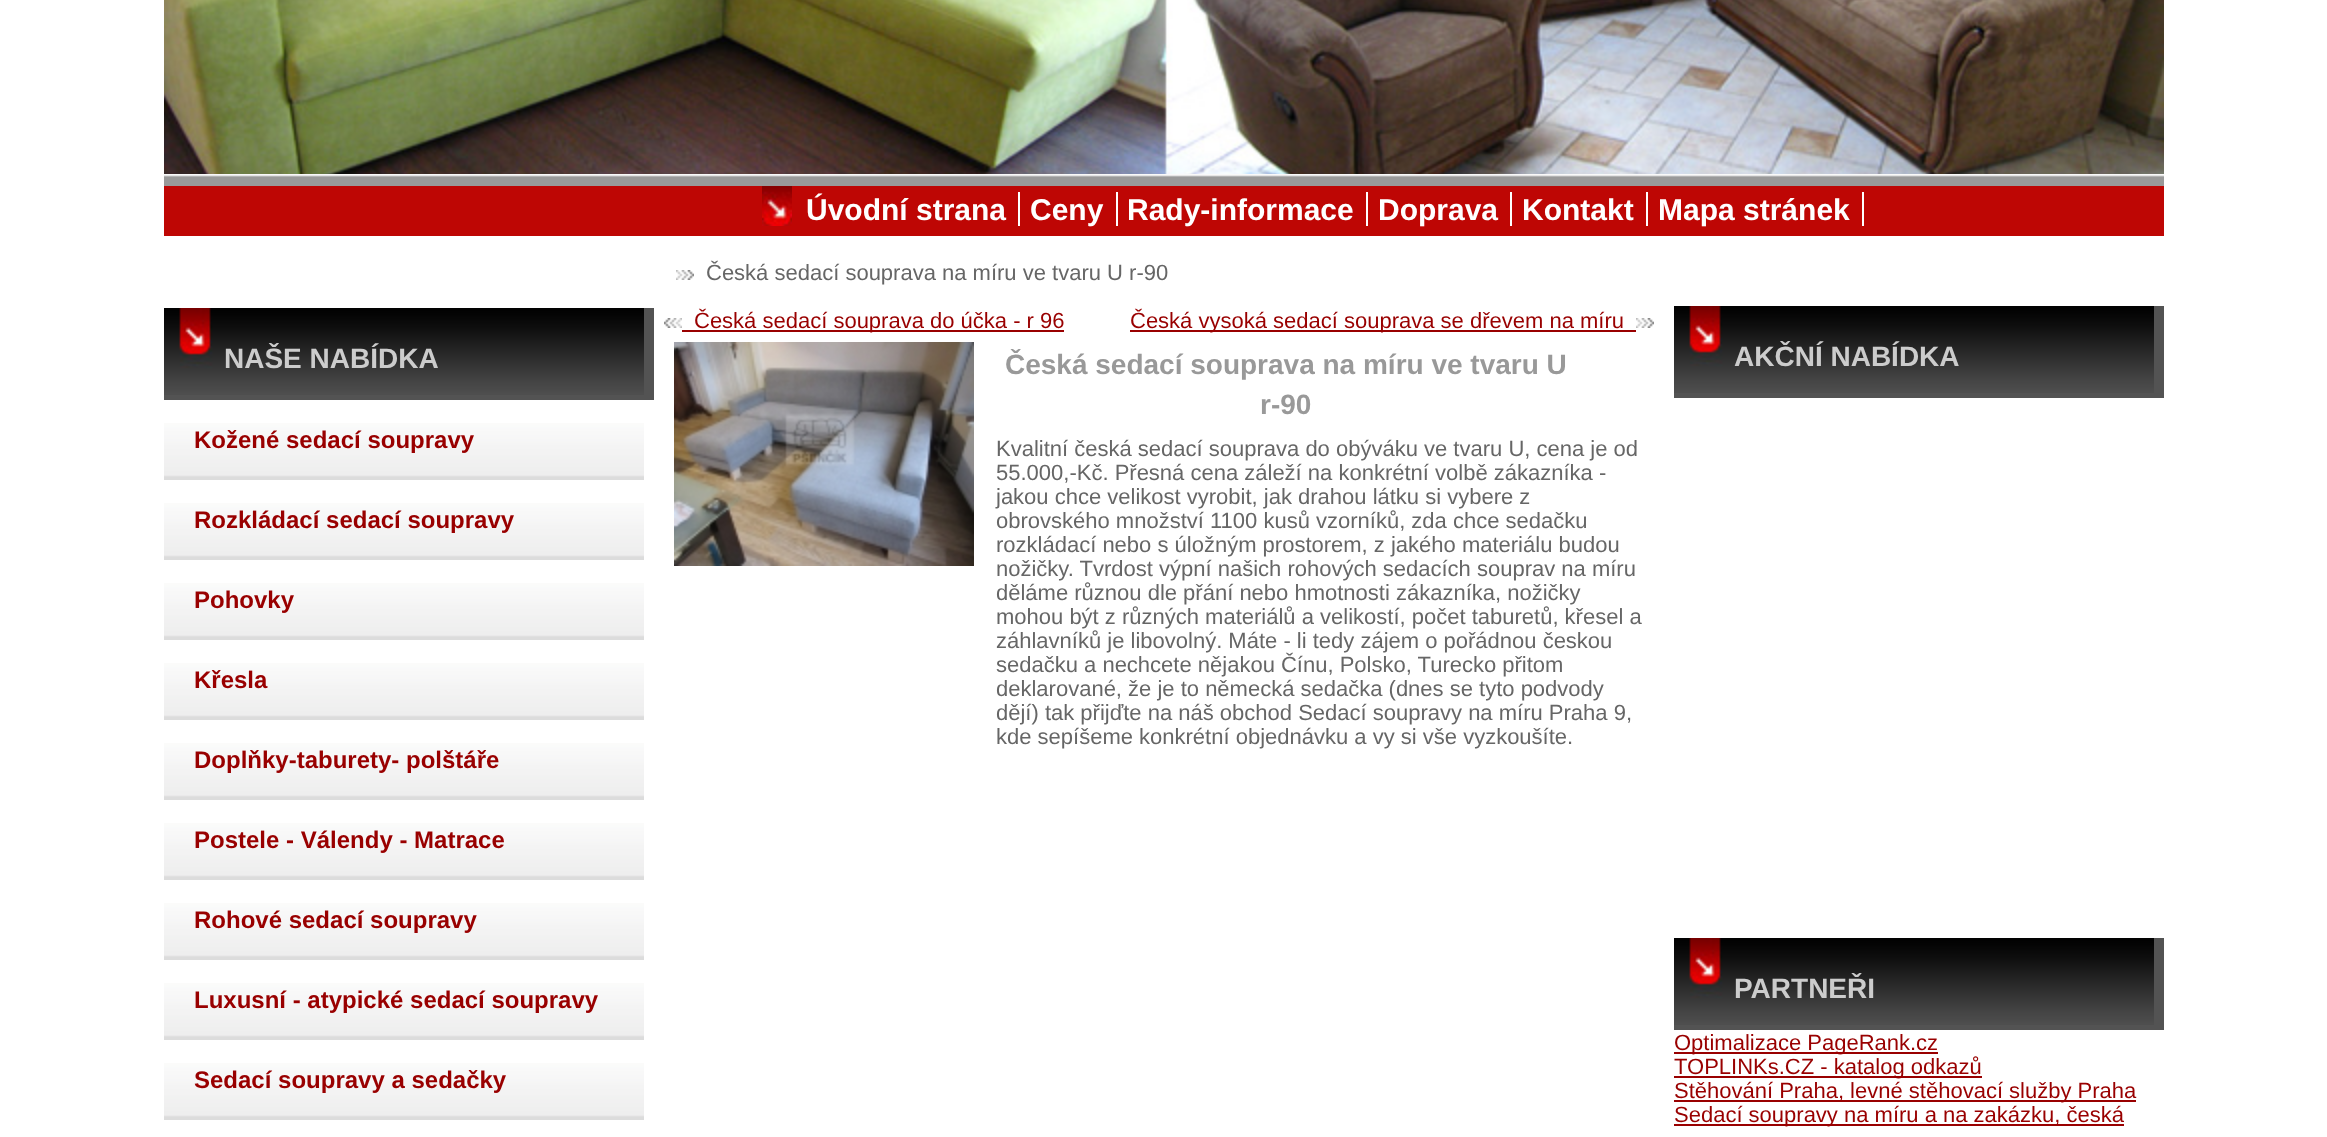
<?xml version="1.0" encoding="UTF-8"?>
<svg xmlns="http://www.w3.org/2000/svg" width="2327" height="1137">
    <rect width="100%" height="100%" fill="#FFFFFF"/>
    <image x="164" y="174" width="2000" height="12" href="img_01.png"/>
    <image x="164" y="0" width="2000" height="174" href="img_02.png"/>
    <rect x="164" y="186" width="2000" height="50" fill="#BE0604"/>
    <image x="762" y="186" width="30" height="40" href="img_03.png"/>
    <rect x="1018" y="192" width="2" height="34" fill="#FFFFFF"/>
    <text x="806" y="220" font-family="Liberation Sans" font-size="30" font-weight="700" fill="#FFFFFF">Úvodní strana</text>
    <rect x="1116" y="192" width="2" height="34" fill="#FFFFFF"/>
    <text x="1030" y="220" font-family="Liberation Sans" font-size="30" font-weight="700" fill="#FFFFFF">Ceny</text>
    <rect x="1366" y="192" width="2" height="34" fill="#FFFFFF"/>
    <text x="1127" y="220" font-family="Liberation Sans" font-size="30" font-weight="700" fill="#FFFFFF">Rady-informace</text>
    <rect x="1510" y="192" width="2" height="34" fill="#FFFFFF"/>
    <text x="1378" y="220" font-family="Liberation Sans" font-size="30" font-weight="700" fill="#FFFFFF">Doprava</text>
    <rect x="1646" y="192" width="2" height="34" fill="#FFFFFF"/>
    <text x="1522" y="220" font-family="Liberation Sans" font-size="30" font-weight="700" fill="#FFFFFF">Kontakt</text>
    <rect x="1862" y="192" width="2" height="34" fill="#FFFFFF"/>
    <text x="1658" y="220" font-family="Liberation Sans" font-size="30" font-weight="700" fill="#FFFFFF">Mapa stránek</text>
    <rect x="164" y="308" width="490" height="92" fill="#535353"/>
    <image x="164" y="308" width="480" height="87" href="img_04.png"/>
    <text x="224" y="368" font-family="Liberation Sans" font-size="28" font-weight="700" fill="#CCCCCC">NAŠE NABÍDKA</text>
    <image x="164" y="423" width="480" height="57" href="img_05.png"/>
    <text x="194" y="448" font-family="Liberation Sans" font-size="24" font-weight="700" fill="#990000">Kožené sedací soupravy</text>
    <image x="164" y="503" width="480" height="57" href="img_05.png"/>
    <text x="194" y="528" font-family="Liberation Sans" font-size="24" font-weight="700" fill="#990000">Rozkládací sedací soupravy</text>
    <image x="164" y="583" width="480" height="57" href="img_05.png"/>
    <text x="194" y="608" font-family="Liberation Sans" font-size="24" font-weight="700" fill="#990000">Pohovky</text>
    <image x="164" y="663" width="480" height="57" href="img_05.png"/>
    <text x="194" y="688" font-family="Liberation Sans" font-size="24" font-weight="700" fill="#990000">Křesla</text>
    <image x="164" y="743" width="480" height="57" href="img_05.png"/>
    <text x="194" y="768" font-family="Liberation Sans" font-size="24" font-weight="700" fill="#990000">Doplňky-taburety- polštáře</text>
    <image x="164" y="823" width="480" height="57" href="img_05.png"/>
    <text x="194" y="848" font-family="Liberation Sans" font-size="24" font-weight="700" fill="#990000">Postele - Válendy - Matrace</text>
    <image x="164" y="903" width="480" height="57" href="img_05.png"/>
    <text x="194" y="928" font-family="Liberation Sans" font-size="24" font-weight="700" fill="#990000">Rohové sedací soupravy</text>
    <image x="164" y="983" width="480" height="57" href="img_05.png"/>
    <text x="194" y="1008" font-family="Liberation Sans" font-size="24" font-weight="700" fill="#990000">Luxusní - atypické sedací soupravy</text>
    <image x="164" y="1063" width="480" height="57" href="img_05.png"/>
    <text x="194" y="1088" font-family="Liberation Sans" font-size="24" font-weight="700" fill="#990000">Sedací soupravy a sedačky</text>
    <image x="676" y="270" width="18" height="10" href="img_06.png"/>
    <text x="706" y="280" font-family="Liberation Sans" font-size="22" fill="#666666">Česká sedací souprava na míru ve tvaru U r-90</text>
    <image x="664" y="318" width="18" height="10" href="img_07.png"/>
    <rect x="682" y="330" width="382" height="2" fill="#990000"/>
    <text x="694" y="328" font-family="Liberation Sans" font-size="22" fill="#990000">Česká sedací souprava do účka - r 96</text>
    <rect x="1130" y="330" width="506" height="2" fill="#990000"/>
    <text x="1130" y="328" font-family="Liberation Sans" font-size="22" fill="#990000">Česká vysoká sedací souprava se dřevem na míru</text>
    <image x="1636" y="318" width="18" height="10" href="img_06.png"/>
    <image x="674" y="342" width="300" height="224" href="img_08.png"/>
    <text x="1005" y="374" font-family="Liberation Sans" font-size="28" font-weight="700" fill="#999999">Česká sedací souprava na míru ve tvaru U</text>
    <text x="1260" y="414" font-family="Liberation Sans" font-size="28" font-weight="700" fill="#999999">r-90</text>
    <text font-family="Liberation Sans" font-size="22" fill="#666666">
        <tspan x="996" y="456">Kvalitní česká sedací souprava do obýváku ve tvaru U, cena je od</tspan>
        <tspan x="996" y="480">55.000,-Kč. Přesná cena záleží na konkrétní volbě zákazníka -</tspan>
        <tspan x="996" y="504">jakou chce velikost vyrobit, jak drahou látku si vybere z</tspan>
        <tspan x="996" y="528">obrovského množství 1100 kusů vzorníků, zda chce sedačku</tspan>
        <tspan x="996" y="552">rozkládací nebo s úložným prostorem, z jakého materiálu budou</tspan>
        <tspan x="996" y="576">nožičky. Tvrdost výpní našich rohových sedacích souprav na míru</tspan>
        <tspan x="996" y="600">děláme různou dle přání nebo hmotnosti zákazníka, nožičky</tspan>
        <tspan x="996" y="624">mohou být z různých materiálů a velikostí, počet taburetů, křesel a</tspan>
        <tspan x="996" y="648">záhlavníků je libovolný. Máte - li tedy zájem o pořádnou českou</tspan>
        <tspan x="996" y="672">sedačku a nechcete nějakou Čínu, Polsko, Turecko přitom</tspan>
        <tspan x="996" y="696">deklarované, že je to německá sedačka (dnes se tyto podvody</tspan>
        <tspan x="996" y="720">dějí) tak přijďte na náš obchod Sedací soupravy na míru Praha 9,</tspan>
        <tspan x="996" y="744">kde sepíšeme konkrétní objednávku a vy si vše vyzkoušíte.</tspan>
    </text>
    <rect x="1674" y="306" width="490" height="92" fill="#535353"/>
    <image x="1674" y="306" width="480" height="87" href="img_04.png"/>
    <text x="1734" y="366" font-family="Liberation Sans" font-size="28" font-weight="700" fill="#CCCCCC">AKČNÍ NABÍDKA</text>
    <rect x="1674" y="938" width="490" height="92" fill="#535353"/>
    <image x="1674" y="938" width="480" height="87" href="img_04.png"/>
    <text x="1734" y="998" font-family="Liberation Sans" font-size="28" font-weight="700" fill="#CCCCCC">PARTNEŘI</text>
    <rect x="1674" y="1052" width="264" height="2" fill="#990000"/>
    <text x="1674" y="1050" font-family="Liberation Sans" font-size="22" fill="#990000">Optimalizace PageRank.cz</text>
    <rect x="1674" y="1076" width="308" height="2" fill="#990000"/>
    <text x="1674" y="1074" font-family="Liberation Sans" font-size="22" fill="#990000">TOPLINKs.CZ - katalog odkazů</text>
    <rect x="1674" y="1100" width="462" height="2" fill="#990000"/>
    <text x="1674" y="1098" font-family="Liberation Sans" font-size="22" fill="#990000">Stěhování Praha, levné stěhovací služby Praha</text>
    <rect x="1674" y="1124" width="450" height="2" fill="#990000"/>
    <text x="1674" y="1122" font-family="Liberation Sans" font-size="22" fill="#990000">Sedací soupravy na míru a na zakázku, česká</text>
</svg>
